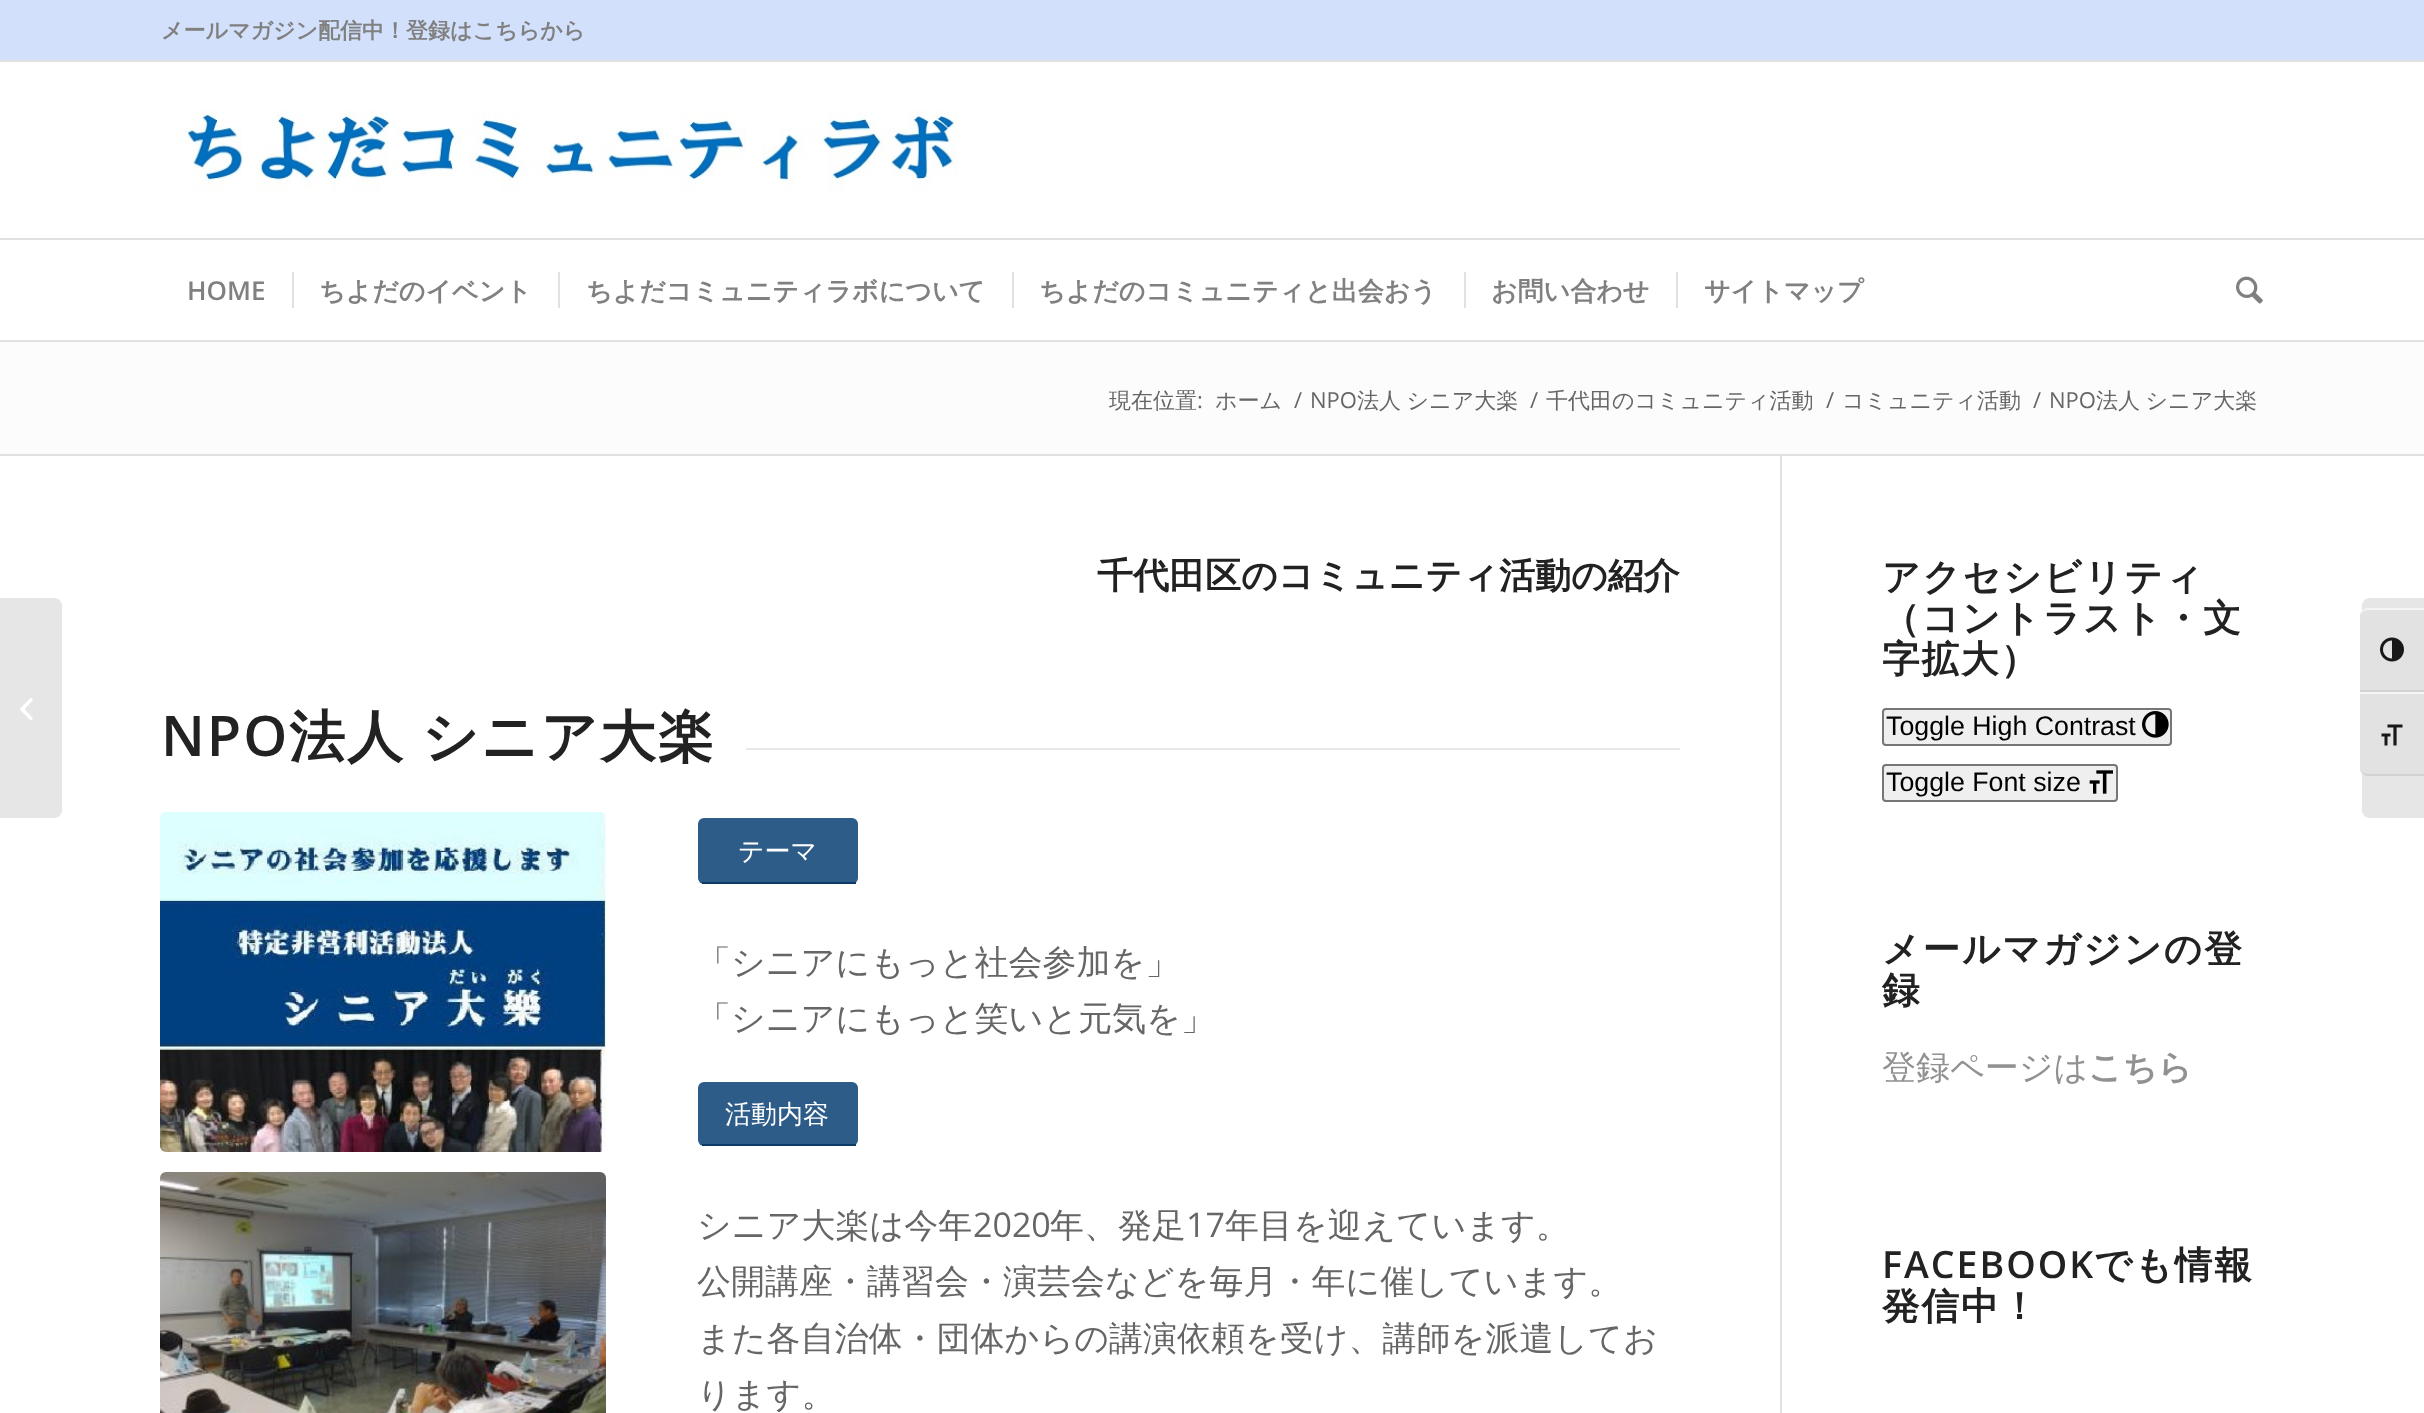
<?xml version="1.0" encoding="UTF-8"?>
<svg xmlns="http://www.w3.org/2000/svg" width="2424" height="1413">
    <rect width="100%" height="100%" fill="#FFFFFF"/>
    <rect x="0" y="0" width="2424" height="60" fill="#D2E0FC"/>
    <rect x="0" y="60" width="2424" height="2" fill="#E1E1E1"/>
    <text x="161" y="38" font-family="WenQuanYi Zen Hei" font-size="22" font-weight="700" fill="#808080">メールマガジン配信中！登録はこちらから</text>
    <rect x="0" y="340" width="2424" height="2" fill="#E1E1E1"/>
    <image x="176" y="110" width="782" height="82" href="img_01.png"/>
    <rect x="0" y="238" width="2424" height="2" fill="#E1E1E1"/>
    <text x="187" y="300" font-family="Open Sans" font-size="26" font-weight="600" fill="#808080">HOME</text>
    <text x="319" y="300" font-family="WenQuanYi Zen Hei" font-size="26" font-weight="700" fill="#808080">ちよだのイベント</text>
    <rect x="292" y="272" width="2" height="36" fill="#E1E1E1"/>
    <text x="586" y="300" font-family="WenQuanYi Zen Hei" font-size="26" font-weight="700" fill="#808080">ちよだコミュニティラボについて</text>
    <rect x="558" y="272" width="2" height="36" fill="#E1E1E1"/>
    <text x="1039" y="300" font-family="WenQuanYi Zen Hei" font-size="26" font-weight="700" fill="#808080">ちよだのコミュニティと出会おう</text>
    <rect x="1012" y="272" width="2" height="36" fill="#E1E1E1"/>
    <text x="1491" y="300" font-family="WenQuanYi Zen Hei" font-size="26" font-weight="700" fill="#808080">お問い合わせ</text>
    <rect x="1464" y="272" width="2" height="36" fill="#E1E1E1"/>
    <text x="1704" y="300" font-family="WenQuanYi Zen Hei" font-size="26" font-weight="700" fill="#808080">サイトマップ</text>
    <rect x="1676" y="272" width="2" height="36" fill="#E1E1E1"/>
    <image x="2236" y="276" width="27" height="28" href="img_02.png"/>
    <path d="M 0 598 H 54 C 58.5 598 62 601.5 62 606 V 810 C 62 814.5 58.5 818 54 818 H 0 Z" fill="#E6E6E6"/>
    <image x="20" y="698" width="13" height="22" href="img_03.png"/>
    <rect x="0" y="342" width="2424" height="112" fill="#FCFCFC"/>
    <text x="1109" y="408" font-family="WenQuanYi Zen Hei" font-size="22" font-weight="500" fill="#666666">現在位置</text>
    <text x="1197" y="408" font-family="Open Sans" font-size="22" fill="#666666">:</text>
    <text x="1215" y="408" font-family="WenQuanYi Zen Hei" font-size="22" font-weight="500" fill="#666666">ホーム</text>
    <text x="1294" y="408" font-family="Open Sans" font-size="22" fill="#666666">/</text>
    <text x="1310" y="408" font-family="Open Sans" font-size="22" fill="#666666">NPO</text>
    <text x="1357" y="408" word-spacing="-1" font-family="WenQuanYi Zen Hei" font-size="22" font-weight="500" fill="#666666">法人 シニア大楽</text>
    <text x="1530" y="408" font-family="Open Sans" font-size="22" fill="#666666">/</text>
    <text x="1546" y="408" font-family="WenQuanYi Zen Hei" font-size="22" font-weight="500" fill="#666666">千代田のコミュニティ活動</text>
    <text x="1826" y="408" font-family="Open Sans" font-size="22" fill="#666666">/</text>
    <text x="1842" y="408" font-family="WenQuanYi Zen Hei" font-size="22" font-weight="500" fill="#666666">コミュニティ活動</text>
    <text x="2033" y="408" font-family="Open Sans" font-size="22" fill="#666666">/</text>
    <text x="2049" y="408" font-family="Open Sans" font-size="22" fill="#666666">NPO</text>
    <text x="2096" y="408" word-spacing="-1" font-family="WenQuanYi Zen Hei" font-size="22" font-weight="500" fill="#666666">法人 シニア大楽</text>
    <rect x="0" y="454" width="2424" height="2" fill="#E1E1E1"/>
    <rect x="1780" y="456" width="2" height="957" fill="#E1E1E1"/>
    <text x="1097" y="588" font-family="WenQuanYi Zen Hei" font-size="36" font-weight="700" fill="#222222">千代田区のコミュニティ活動の紹介</text>
    <text x="161" y="756" font-family="Open Sans" font-size="56" font-weight="600" letter-spacing="2" fill="#222222">NPO</text>
    <text x="289" y="756" word-spacing="-2" font-family="WenQuanYi Zen Hei" font-size="56" font-weight="700" letter-spacing="2" fill="#222222">法人 シニア大楽</text>
    <rect x="746" y="748" width="934" height="2" fill="#E8E8E8"/>
    <image x="160" y="812" width="446" height="340" href="img_04.png"/>
    <image x="160" y="1172" width="446" height="241" href="img_05.png"/>
    <rect x="698" y="818" width="160" height="66" rx="6" fill="#2D5C88"/>
    <rect x="702" y="882" width="154" height="2" fill="#0B3A66"/>
    <text x="738" y="860" font-family="WenQuanYi Zen Hei" font-size="26" font-weight="500" fill="#FFFFFF">テーマ</text>
    <text font-family="WenQuanYi Zen Hei" font-size="34" font-weight="500" fill="#666666">
        <tspan x="697" y="974">「シニアにもっと社会参加を」</tspan>
        <tspan x="697" y="1030">「シニアにもっと笑いと元気を」</tspan>
    </text>
    <rect x="698" y="1082" width="160" height="64" rx="6" fill="#2D5C88"/>
    <rect x="702" y="1144" width="154" height="2" fill="#0B3A66"/>
    <text x="725" y="1123" font-family="WenQuanYi Zen Hei" font-size="26" font-weight="500" fill="#FFFFFF">活動内容</text>
    <text x="697" y="1237" font-family="WenQuanYi Zen Hei" font-size="34" font-weight="500" fill="#666666">シニア大楽は今年</text>
    <text x="973" y="1237" font-family="Open Sans" font-size="34" fill="#666666">2020</text>
    <text x="1050" y="1237" font-family="WenQuanYi Zen Hei" font-size="34" font-weight="500" fill="#666666">年、発足</text>
    <text x="1186" y="1237" font-family="Open Sans" font-size="34" fill="#666666">17</text>
    <text x="1225" y="1237" font-family="WenQuanYi Zen Hei" font-size="34" font-weight="500" fill="#666666">年目を迎えています。</text>
    <text font-family="WenQuanYi Zen Hei" font-size="34" font-weight="500" fill="#666666">
        <tspan x="697" y="1293">公開講座・講習会・演芸会などを毎月・年に催しています。</tspan>
        <tspan x="697" y="1350">また各自治体・団体からの講演依頼を受け、講師を派遣してお</tspan>
        <tspan x="697" y="1406">ります。</tspan>
    </text>
    <text font-family="WenQuanYi Zen Hei" font-size="37.5" font-weight="700" letter-spacing="2" fill="#222222">
        <tspan x="1882" y="590">アクセシビリティ</tspan>
        <tspan x="1882" y="631">（コントラスト・文</tspan>
        <tspan x="1882" y="672">字拡大）</tspan>
    </text>
    <rect x="1883" y="709" width="288" height="36" rx="3" fill="#EFEFEF" stroke="#767676" stroke-width="2"/>
    <text x="1886" y="735" font-family="Liberation Sans" font-size="26.75" fill="#000000">Toggle High Contrast</text>
    <image x="2142" y="711" width="27" height="27" href="img_06.png"/>
    <rect x="1883" y="765" width="234" height="36" rx="3" fill="#EFEFEF" stroke="#767676" stroke-width="2"/>
    <text x="1886" y="791" font-family="Liberation Sans" font-size="26.75" fill="#000000">Toggle Font size</text>
    <image x="2089" y="770" width="24" height="24" href="img_07.png"/>
    <text font-family="WenQuanYi Zen Hei" font-size="37.5" font-weight="700" letter-spacing="2" fill="#222222">
        <tspan x="1882" y="962">メールマガジンの登</tspan>
        <tspan x="1882" y="1003">録</tspan>
    </text>
    <text x="1882" y="1079" font-family="WenQuanYi Zen Hei" font-size="34" font-weight="500" fill="#919191">登録ページは</text>
    <text x="2088" y="1079" font-family="WenQuanYi Zen Hei" font-size="34" font-weight="700" fill="#919191">こちら</text>
    <text x="1882" y="1278" font-family="Open Sans" font-size="37.5" font-weight="600" letter-spacing="2" fill="#222222">FACEBOOK</text>
    <text x="2094" y="1278" font-family="WenQuanYi Zen Hei" font-size="37.5" font-weight="700" letter-spacing="2" fill="#222222">でも情報</text>
    <text x="1882" y="1319" font-family="WenQuanYi Zen Hei" font-size="37.5" font-weight="700" letter-spacing="2" fill="#222222">発信中！</text>
    <path d="M 2370 598 H 2424 V 818 H 2370 C 2365.5 818 2362 814.5 2362 810 V 606 C 2362 601.5 2365.5 598 2370 598 Z" fill="#E6E6E6"/>
    <path d="M 2368 608 H 2424 V 692 H 2360 V 616 C 2360 611.5 2363.5 608 2368 608 Z" fill="#E2E2E2"/>
    <path d="M 2368 610 H 2424 V 608 H 2368 C 2364 608 2360 612 2360 616 C 2360 613 2364 610 2368 610 Z" fill="#F5F5F5"/>
    <rect x="2360" y="690" width="64" height="2" fill="#D2D2D2"/>
    <image x="2380" y="637" width="24" height="25" href="img_08.png"/>
    <path d="M 2360 692 H 2424 V 776 H 2368 C 2363.5 776 2360 772.5 2360 768 Z" fill="#E2E2E2"/>
    <rect x="2360" y="692" width="64" height="2" fill="#F5F5F5"/>
    <path d="M 2424 776 V 774 H 2368 C 2364 774 2360 771 2360 768 C 2360 772 2364 776 2368 776 Z" fill="#D2D2D2"/>
    <image x="2381" y="724" width="22" height="22" href="img_09.png"/>
</svg>
